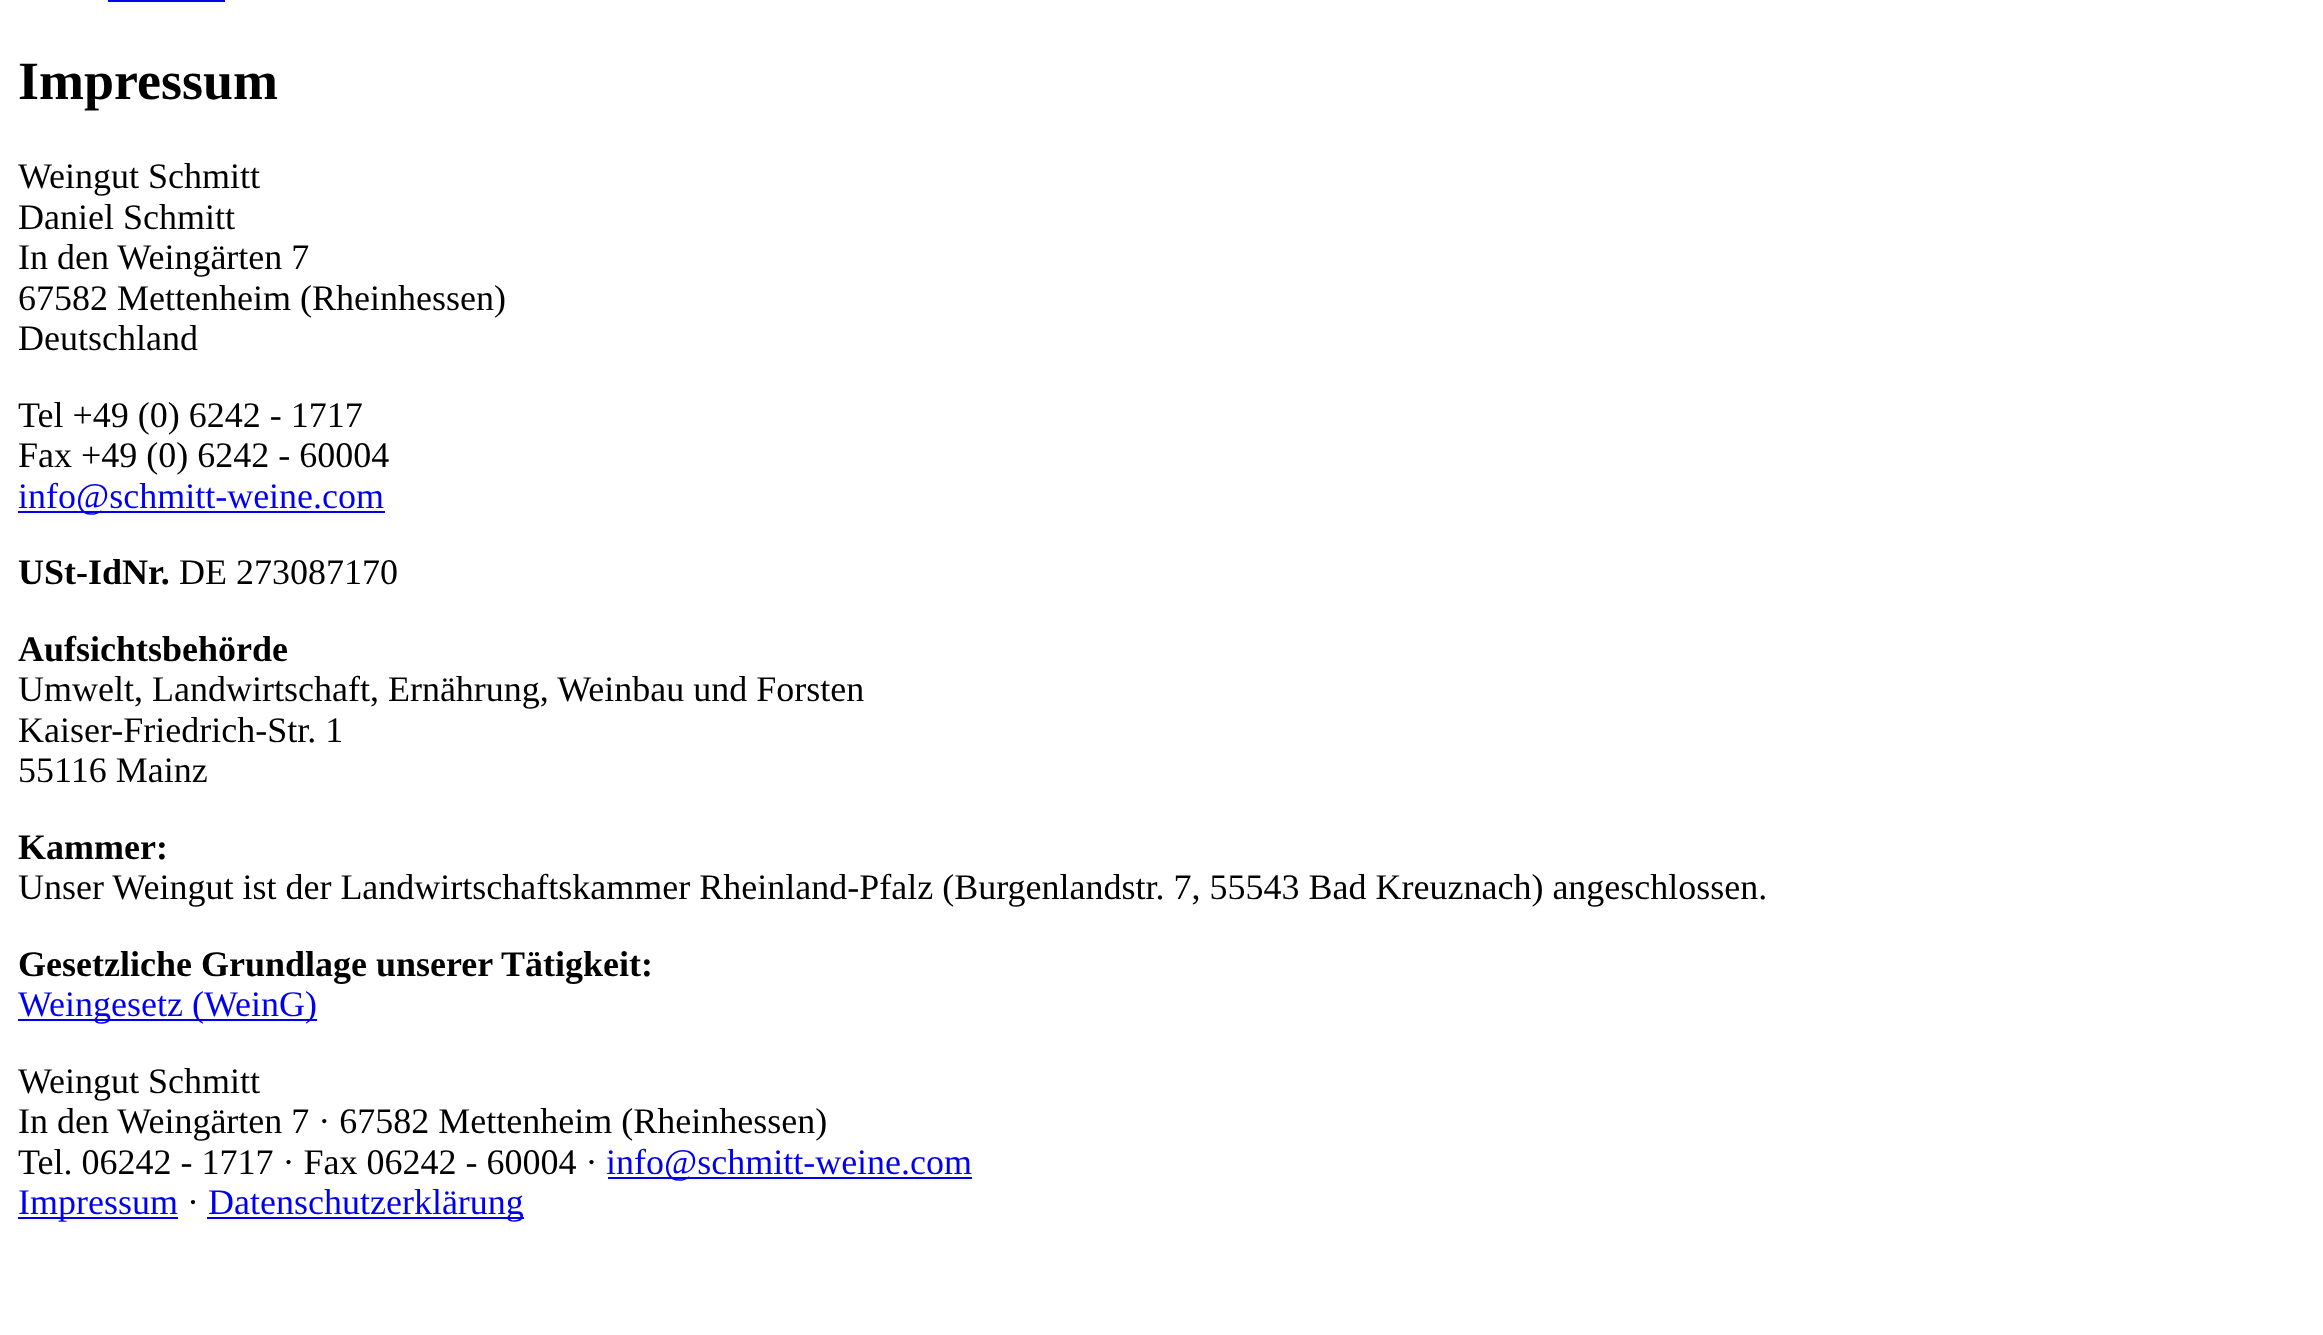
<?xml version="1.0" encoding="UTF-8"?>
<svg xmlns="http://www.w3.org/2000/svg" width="2323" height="1335">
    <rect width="100%" height="100%" fill="#FFFFFF"/>
    <rect x="108" y="0" width="117" height="2" fill="#0000EE"/>
    <text x="18" y="99" font-family="Liberation Serif" font-size="54" font-weight="700" fill="#000000">Impressum</text>
    <text font-family="Liberation Serif" font-size="36" fill="#000000">
        <tspan x="18" y="188">Weingut Schmitt</tspan>
        <tspan x="18" y="229">Daniel Schmitt</tspan>
        <tspan x="18" y="269">In den Weingärten 7</tspan>
        <tspan x="18" y="310">67582 Mettenheim (Rheinhessen)</tspan>
        <tspan x="18" y="350">Deutschland</tspan>
    </text>
    <text font-family="Liberation Serif" font-size="36" fill="#000000">
        <tspan x="18" y="427">Tel +49 (0) 6242 - 1717</tspan>
        <tspan x="18" y="467">Fax +49 (0) 6242 - 60004</tspan>
    </text>
    <rect x="18" y="511" width="367" height="2" fill="#0000EE"/>
    <text x="18" y="508" font-family="Liberation Serif" font-size="36" fill="#0000EE">info@schmitt-weine.com</text>
    <text x="18" y="584" font-family="Liberation Serif" font-size="36" font-weight="700" fill="#000000">USt-IdNr.</text>
    <text x="179" y="584" font-family="Liberation Serif" font-size="36" fill="#000000">DE 273087170</text>
    <text x="18" y="661" font-family="Liberation Serif" font-size="36" font-weight="700" fill="#000000">Aufsichtsbehörde</text>
    <text font-family="Liberation Serif" font-size="36" fill="#000000">
        <tspan x="18" y="701">Umwelt, Landwirtschaft, Ernährung, Weinbau und Forsten</tspan>
        <tspan x="18" y="742">Kaiser-Friedrich-Str. 1</tspan>
        <tspan x="18" y="782">55116 Mainz</tspan>
    </text>
    <text x="18" y="859" font-family="Liberation Serif" font-size="36" font-weight="700" fill="#000000">Kammer:</text>
    <text x="18" y="899" font-family="Liberation Serif" font-size="36" fill="#000000">Unser Weingut ist der Landwirtschaftskammer Rheinland-Pfalz (Burgenlandstr. 7, 55543 Bad Kreuznach) angeschlossen.</text>
    <text x="18" y="976" font-family="Liberation Serif" font-size="36" font-weight="700" fill="#000000">Gesetzliche Grundlage unserer Tätigkeit:</text>
    <rect x="18" y="1019" width="299" height="2" fill="#0000EE"/>
    <text x="18" y="1016" font-family="Liberation Serif" font-size="36" fill="#0000EE">Weingesetz (WeinG)</text>
    <text font-family="Liberation Serif" font-size="36" fill="#000000">
        <tspan x="18" y="1093">Weingut Schmitt</tspan>
        <tspan x="18" y="1133">In den Weingärten 7 · 67582 Mettenheim (Rheinhessen)</tspan>
        <tspan x="18" y="1174">Tel. 06242 - 1717 · Fax 06242 - 60004 ·</tspan>
    </text>
    <rect x="608" y="1177" width="364" height="2" fill="#0000EE"/>
    <text x="606" y="1174" font-family="Liberation Serif" font-size="36" fill="#0000EE">info@schmitt-weine.com</text>
    <rect x="18" y="1217" width="160" height="2" fill="#0000EE"/>
    <text x="18" y="1214" font-family="Liberation Serif" font-size="36" fill="#0000EE">Impressum</text>
    <text x="187" y="1214" font-family="Liberation Serif" font-size="36" fill="#000000">·</text>
    <rect x="207" y="1217" width="317" height="2" fill="#0000EE"/>
    <text x="208" y="1214" font-family="Liberation Serif" font-size="36" fill="#0000EE">Datenschutzerklärung</text>
</svg>
